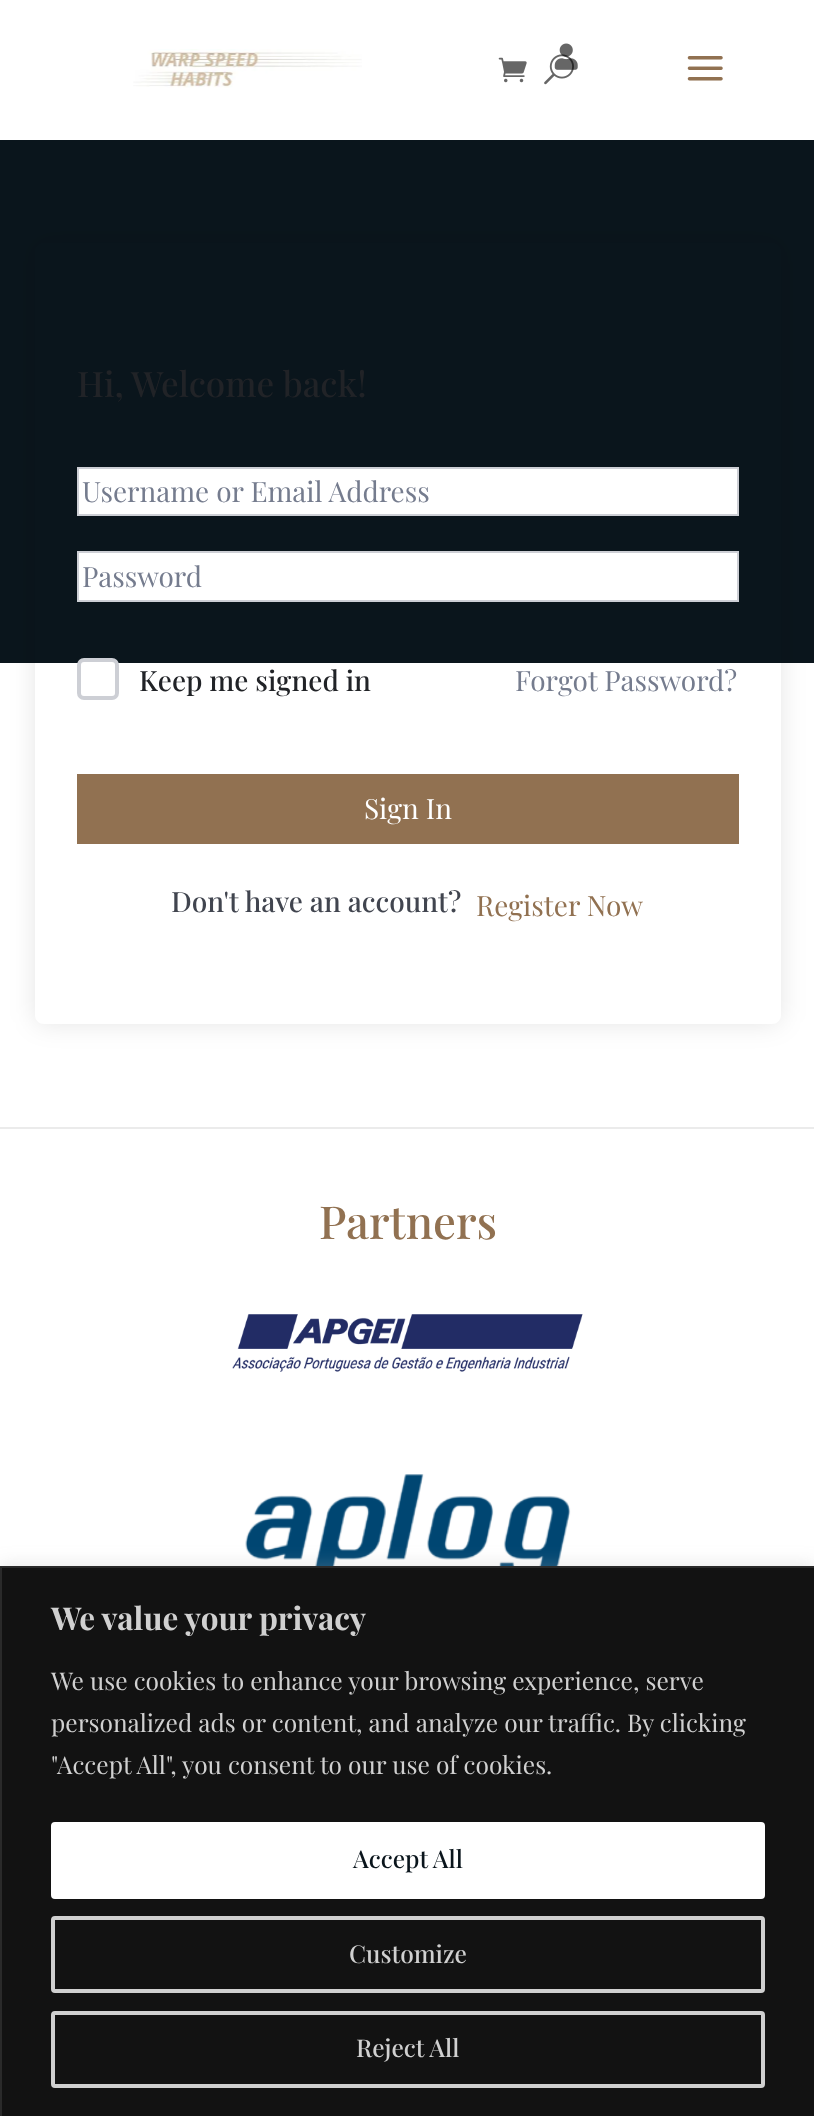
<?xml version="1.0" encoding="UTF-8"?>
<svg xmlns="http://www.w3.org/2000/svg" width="814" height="2116">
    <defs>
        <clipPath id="clip1"><path d="M 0 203 H 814 V 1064 H 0 Z M 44 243 H 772 C 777 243 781 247 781 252 V 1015 C 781 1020 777 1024 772 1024 H 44 C 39 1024 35 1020 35 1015 V 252 C 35 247 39 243 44 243 Z" clip-rule="evenodd"/></clipPath>
        <filter id="blur1" x="-50%" y="-200%" width="200%" height="500%"><feGaussianBlur stdDeviation="13"/></filter>
        <filter id="blur2" x="-50%" y="-200%" width="200%" height="500%"><feGaussianBlur stdDeviation="9"/></filter>
    </defs>
    <rect width="100%" height="100%" fill="#FFFFFF"/>
    <rect x="0" y="140" width="814" height="523" fill="#0A151C"/>
    <image x="133" y="49" width="229" height="39" href="img_01.png"/>
    <image x="544" y="54" width="30" height="31" href="img_04.png"/>
    <image x="554" y="43" width="24" height="27" href="img_02.png"/>
    <image x="498" y="57" width="29" height="26" href="img_03.png"/>
    <image x="687" y="56" width="36" height="25" href="img_05.png"/>
    <g clip-path="url(#clip1)">
        <rect x="35" y="243" width="746" height="781" rx="9" fill="#000000" fill-opacity="0.1" filter="url(#blur1)"/>
    </g>
    <text x="77" y="397" font-family="Playfair Display" font-size="35" font-weight="500" fill="#212327">Hi, Welcome back!</text>
    <rect x="78" y="468" width="660" height="47" fill="#FFFFFF" stroke="#CDCFD5" stroke-width="2"/>
    <text x="82" y="502" font-family="Playfair Display" font-size="28" fill="#757C8E">Username or Email Address</text>
    <rect x="78" y="552" width="660" height="49" fill="#FFFFFF" stroke="#CDCFD5" stroke-width="2"/>
    <text x="82" y="587" font-family="Playfair Display" font-size="28" fill="#757C8E">Password</text>
    <rect x="79" y="660" width="38" height="38" rx="5" fill="#FFFFFF" stroke="#CDCFD5" stroke-width="4"/>
    <text x="139" y="691" font-family="Playfair Display" font-size="28" font-weight="500" fill="#212327">Keep me signed in</text>
    <text x="515" y="691" font-family="Playfair Display" font-size="28" fill="#757C8E">Forgot Password?</text>
    <rect x="77" y="774" width="662" height="70" fill="#917151"/>
    <text x="364" y="819" font-family="Playfair Display" font-size="28" fill="#FFFFFF">Sign In</text>
    <text x="171" y="912" font-family="Playfair Display" font-size="28" font-weight="500" fill="#41454F">Don't have an account?</text>
    <text x="476" y="916" font-family="Playfair Display" font-size="28" fill="#917151">Register Now</text>
    <rect x="-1" y="1128" width="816" height="805" fill="none" stroke="#EBEBEB" stroke-width="2"/>
    <text x="319" y="1239" font-family="Playfair Display" font-size="45.5" font-weight="500" fill="#917151">Partners</text>
    <image x="232" y="1314" width="351" height="58" href="img_06.png"/>
    <image x="245" y="1474" width="326" height="92" href="img_07.png"/>
    <rect x="0" y="1565" width="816" height="551" fill="#ACABAB" fill-opacity="0.3" filter="url(#blur2)"/>
    <rect x="1" y="1567" width="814" height="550" fill="#121212" stroke="#2A2A2A" stroke-width="2"/>
    <text x="51" y="1630" font-family="Playfair Display" font-size="31.5" font-weight="700" fill="#D0D0D0">We value your privacy</text>
    <text font-family="Playfair Display" font-size="24.5" fill="#D0D0D0">
        <tspan x="51" y="1690">We use cookies to enhance your browsing experience, serve</tspan>
        <tspan x="51" y="1732">personalized ads or content, and analyze our traffic. By clicking</tspan>
        <tspan x="51" y="1774">"Accept All", you consent to our use of cookies.</tspan>
    </text>
    <rect x="53" y="1824" width="710" height="73" rx="2" fill="#FFFFFF" stroke="#FFFFFF" stroke-width="4"/>
    <text x="353" y="1868" font-family="Playfair Display" font-size="24.5" font-weight="500" fill="#0A151C">Accept All</text>
    <rect x="53" y="1918" width="710" height="73" rx="2" fill="none" stroke="#D0D0D0" stroke-width="4"/>
    <text x="349" y="1963" font-family="Playfair Display" font-size="24.5" font-weight="500" fill="#D0D0D0">Customize</text>
    <rect x="53" y="2013" width="710" height="73" rx="2" fill="none" stroke="#D0D0D0" stroke-width="4"/>
    <text x="356" y="2057" font-family="Playfair Display" font-size="24.5" font-weight="500" fill="#D0D0D0">Reject All</text>
</svg>
